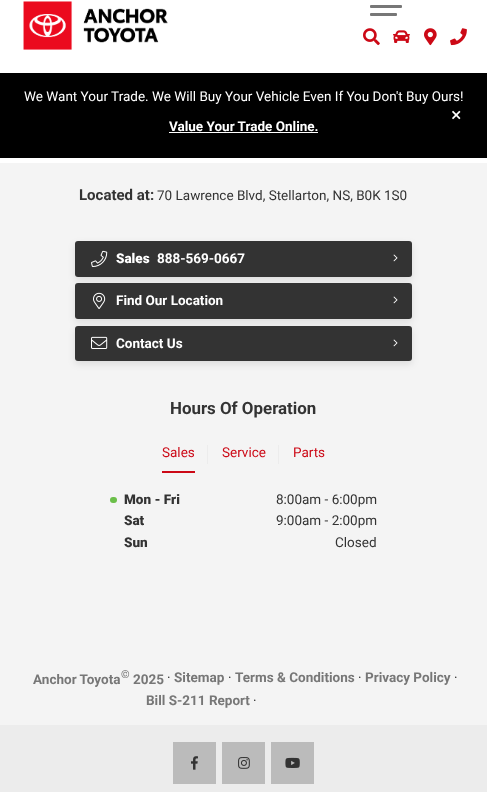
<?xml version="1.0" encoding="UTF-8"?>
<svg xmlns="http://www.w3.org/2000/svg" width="487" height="792">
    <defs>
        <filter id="blur1" x="-50%" y="-200%" width="200%" height="500%"><feGaussianBlur stdDeviation="3.5"/></filter>
    </defs>
    <rect width="100%" height="100%" fill="#FFFFFF"/>
    <image x="23" y="1" width="145" height="49" href="img_01.png"/>
    <rect x="370" y="5" width="32" height="3" rx="1" fill="#777777"/>
    <rect x="370" y="13" width="27" height="3" rx="1" fill="#777777"/>
    <image x="363" y="28" width="17" height="18" href="img_02.png"/>
    <image x="393" y="30" width="17" height="13" href="img_03.png"/>
    <image x="424" y="28" width="13" height="18" href="img_04.png"/>
    <image x="450" y="28" width="17" height="18" href="img_05.png"/>
    <rect x="0" y="73" width="487" height="85" fill="#000000"/>
    <text x="24" y="101" font-family="Roboto" font-size="13.5" fill="#FFFFFF">We Want Your Trade. We Will Buy Your Vehicle Even If You Don't Buy Ours!</text>
    <text x="169" y="131" font-family="Roboto" font-size="13.5" font-weight="700" fill="#FFFFFF">Value Your Trade Online.</text>
    <rect x="169" y="132" width="149" height="1" fill="#FFFFFF"/>
    <image x="452" y="110" width="9" height="10" href="img_06.png"/>
    <rect x="0" y="163" width="487" height="562" fill="#F4F4F4"/>
    <text x="79" y="200" font-family="Roboto" font-size="15" font-weight="700" fill="#333333">Located at:</text>
    <text x="157" y="200" font-family="Roboto" font-size="13.5" fill="#333333">70 Lawrence Blvd, Stellarton, NS, B0K 1S0</text>
    <rect x="75" y="244" width="337" height="36" rx="3" fill="#000000" fill-opacity="0.1" filter="url(#blur1)"/>
    <rect x="75" y="241" width="337" height="36" rx="3" fill="#333333"/>
    <image x="91" y="250" width="17" height="17" href="img_07.png"/>
    <text x="116" y="263" font-family="Roboto" font-size="13.5" font-weight="900" fill="#FFFFFF">Sales</text>
    <text x="157" y="263" font-family="Roboto" font-size="13.5" font-weight="700" fill="#FFFFFF">888-569-0667</text>
    <image x="393" y="254" width="5" height="8" href="img_08.png"/>
    <rect x="75" y="286" width="337" height="36" rx="3" fill="#000000" fill-opacity="0.1" filter="url(#blur1)"/>
    <rect x="75" y="283" width="337" height="36" rx="3" fill="#333333"/>
    <image x="93" y="292" width="13" height="17" href="img_09.png"/>
    <text x="116" y="305" font-family="Roboto" font-size="13.5" font-weight="700" fill="#FFFFFF">Find Our Location</text>
    <image x="393" y="296" width="5" height="8" href="img_08.png"/>
    <rect x="75" y="329" width="337" height="35" rx="3" fill="#000000" fill-opacity="0.1" filter="url(#blur1)"/>
    <rect x="75" y="326" width="337" height="35" rx="3" fill="#333333"/>
    <image x="91" y="336" width="17" height="13" href="img_10.png"/>
    <text x="116" y="348" font-family="Roboto" font-size="13.5" font-weight="700" fill="#FFFFFF">Contact Us</text>
    <image x="393" y="339" width="5" height="8" href="img_08.png"/>
    <text x="170" y="414" font-family="Roboto" font-size="16.9" font-weight="700" fill="#333333">Hours Of Operation</text>
    <rect x="162" y="471" width="33" height="2" fill="#CC0916"/>
    <text x="162" y="457" font-family="Roboto" font-size="13.5" fill="#CC0916">Sales</text>
    <rect x="207" y="445" width="1" height="19" fill="#ECECEC"/>
    <text x="222" y="457" font-family="Roboto" font-size="13.5" fill="#CC0916">Service</text>
    <rect x="278" y="445" width="1" height="19" fill="#ECECEC"/>
    <text x="293" y="457" font-family="Roboto" font-size="13.5" fill="#CC0916">Parts</text>
    <rect x="110" y="497" width="7" height="6" rx="3" fill="#6BBF49"/>
    <text x="124" y="504" font-family="Roboto" font-size="13.5" font-weight="900" fill="#333333">Mon - Fri</text>
    <text x="276" y="504" font-family="Roboto" font-size="13.5" fill="#333333">8:00am - 6:00pm</text>
    <text x="124" y="525" font-family="Roboto" font-size="13.5" font-weight="900" fill="#333333">Sat</text>
    <text x="276" y="525" font-family="Roboto" font-size="13.5" fill="#333333">9:00am - 2:00pm</text>
    <text x="124" y="547" font-family="Roboto" font-size="13.5" font-weight="900" fill="#333333">Sun</text>
    <text x="335" y="547" font-family="Roboto" font-size="13.5" fill="#333333">Closed</text>
    <text x="33" y="684" font-family="Roboto" font-size="13.5" font-weight="700" fill="#777777">Anchor Toyota</text>
    <text x="121" y="678" font-family="Roboto" font-size="11" font-weight="700" fill="#777777">©</text>
    <text x="133" y="684" font-family="Roboto" font-size="13.5" font-weight="700" fill="#777777">2025</text>
    <text x="167" y="682" font-family="Roboto" font-size="13.5" fill="#333333">·</text>
    <text x="174" y="682" font-family="Roboto" font-size="13.5" font-weight="700" fill="#777777">Sitemap</text>
    <text x="228" y="682" font-family="Roboto" font-size="13.5" fill="#333333">·</text>
    <text x="235" y="682" font-family="Roboto" font-size="13.5" font-weight="700" fill="#777777">Terms &amp; Conditions</text>
    <text x="358" y="682" font-family="Roboto" font-size="13.5" fill="#333333">·</text>
    <text x="365" y="682" font-family="Roboto" font-size="13.5" font-weight="700" fill="#777777">Privacy Policy</text>
    <text x="454" y="682" font-family="Roboto" font-size="13.5" fill="#333333">·</text>
    <text x="146" y="705" font-family="Roboto" font-size="13.5" font-weight="700" fill="#777777">Bill S-211 Report</text>
    <text x="253" y="705" font-family="Roboto" font-size="13.5" fill="#333333">·</text>
    <rect x="0" y="725" width="487" height="67" fill="#ECECEC"/>
    <rect x="173" y="742" width="43" height="42" fill="#BBBBBB"/>
    <image x="191" y="756" width="7" height="14" href="img_11.png"/>
    <rect x="222" y="742" width="43" height="42" fill="#BBBBBB"/>
    <image x="238" y="757" width="12" height="12" href="img_12.png"/>
    <rect x="271" y="742" width="43" height="42" fill="#BBBBBB"/>
    <image x="285" y="757" width="15" height="11" href="img_13.png"/>
</svg>
